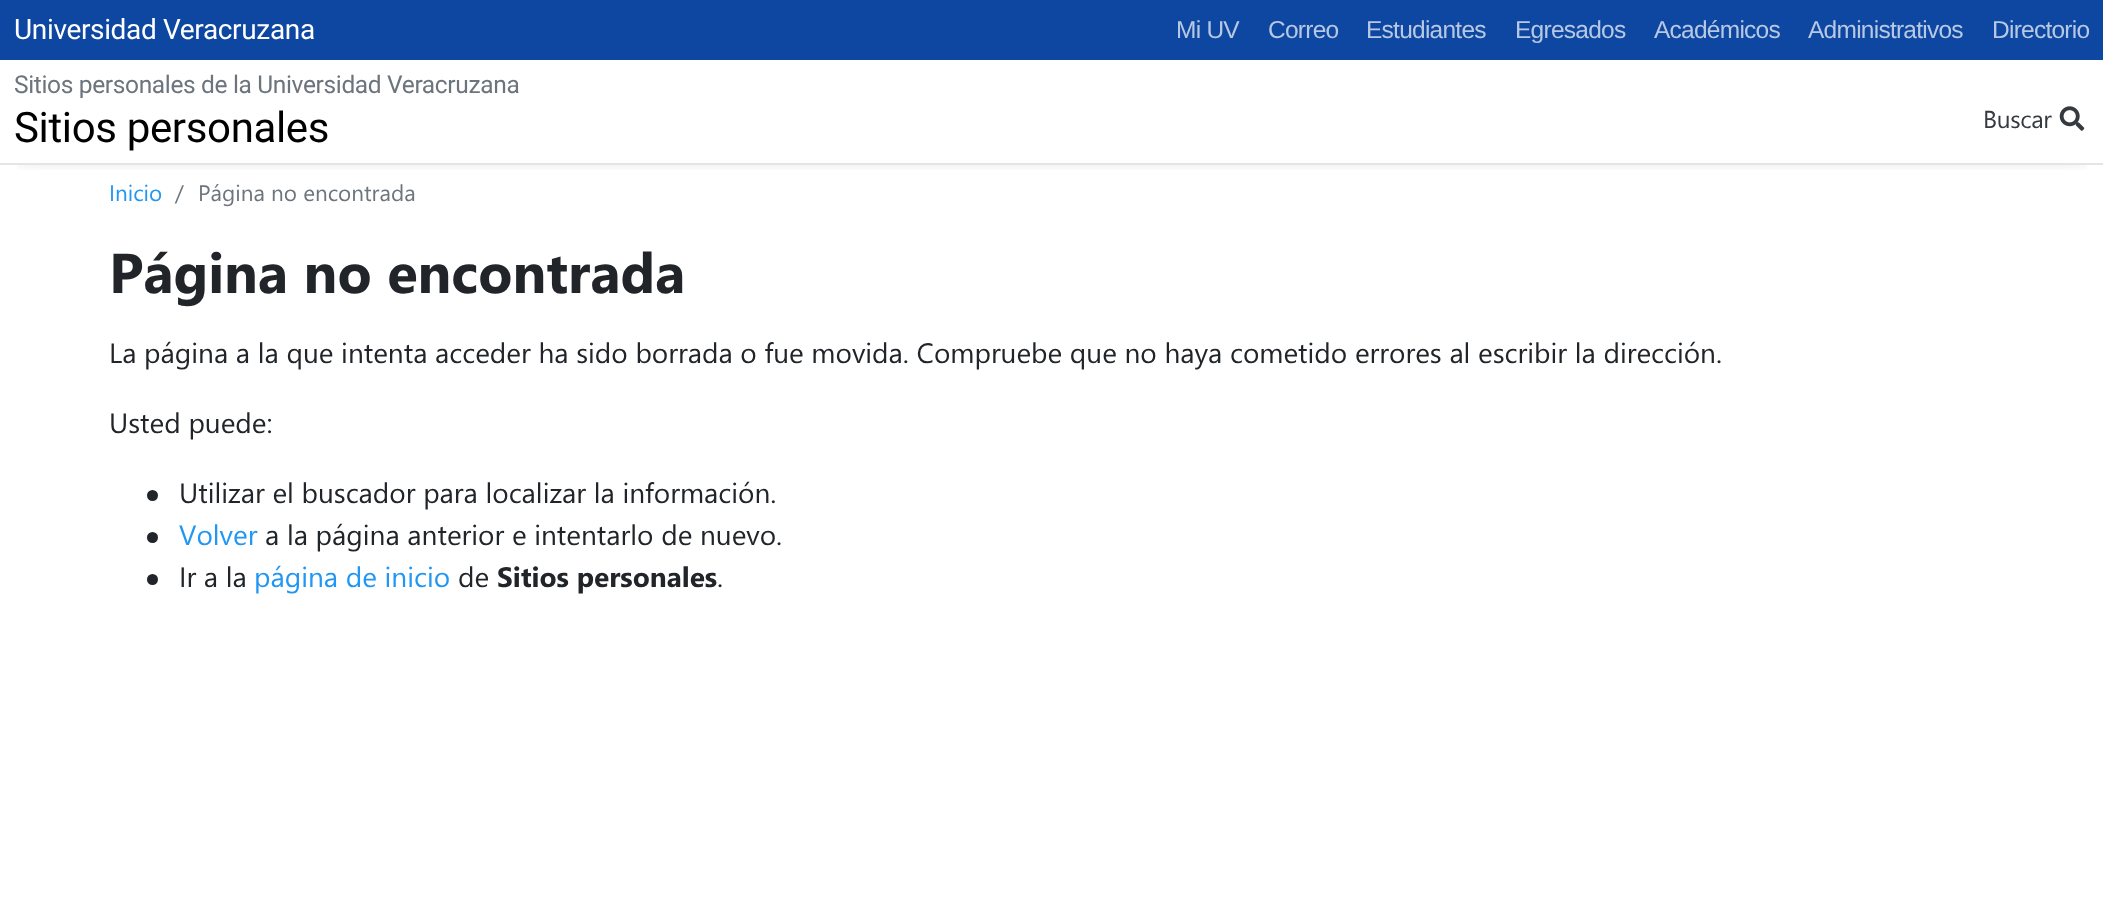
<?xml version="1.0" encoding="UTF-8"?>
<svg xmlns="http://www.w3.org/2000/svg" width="2103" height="900">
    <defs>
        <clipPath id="clip1"><rect x="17" y="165" width="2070" height="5"/></clipPath>
        <filter id="blur1" x="-50%" y="-200%" width="200%" height="500%"><feGaussianBlur stdDeviation="9"/></filter>
    </defs>
    <rect width="100%" height="100%" fill="#FFFFFF"/>
    <g clip-path="url(#clip1)">
        <rect x="18" y="26" width="2068" height="130" fill="#000000" fill-opacity="0.3" filter="url(#blur1)"/>
    </g>
    <rect x="0" y="163" width="2103" height="2" fill="#E5E5E5"/>
    <rect x="0" y="0" width="2103" height="60" fill="#0E47A1"/>
    <text x="14" y="39" font-family="Roboto" font-size="28" letter-spacing="-0.35" fill="#FFFFFF">Universidad Veracruzana</text>
    <text x="1176" y="38" font-family="Liberation Sans" font-size="24.5" letter-spacing="-0.75" fill="#B7C8E3">Mi UV</text>
    <text x="1268" y="38" font-family="Liberation Sans" font-size="24.5" letter-spacing="-0.75" fill="#B7C8E3">Correo</text>
    <text x="1366" y="38" font-family="Liberation Sans" font-size="24.5" letter-spacing="-0.75" fill="#B7C8E3">Estudiantes</text>
    <text x="1515" y="38" font-family="Liberation Sans" font-size="24.5" letter-spacing="-0.75" fill="#B7C8E3">Egresados</text>
    <text x="1654" y="38" font-family="Liberation Sans" font-size="24.5" letter-spacing="-0.75" fill="#B7C8E3">Académicos</text>
    <text x="1808" y="38" font-family="Liberation Sans" font-size="24.5" letter-spacing="-0.75" fill="#B7C8E3">Administrativos</text>
    <text x="1992" y="38" font-family="Liberation Sans" font-size="24.5" letter-spacing="-0.75" fill="#B7C8E3">Directorio</text>
    <text x="14" y="93" font-family="Roboto" font-size="24.5" letter-spacing="-0.35" fill="#6C757D">Sitios personales de la Universidad Veracruzana</text>
    <text x="14" y="142" font-family="Roboto" font-size="42" letter-spacing="-0.35" fill="#000000">Sitios personales</text>
    <text x="1983" y="128" font-family="Segoe UI" font-size="24.5" letter-spacing="-0.35" fill="#343A40">Buscar</text>
    <image x="2059" y="106" width="26" height="25" href="img_01.png"/>
    <text x="109" y="201" font-family="Segoe UI" font-size="22.5" fill="#2196F3">Inicio</text>
    <text x="175" y="201" font-family="Segoe UI" font-size="22.5" fill="#6C757D">/</text>
    <text x="198" y="201" font-family="Segoe UI" font-size="22.5" fill="#6C757D">Página no encontrada</text>
    <text x="109" y="293" font-family="Segoe UI" font-size="56" font-weight="700" fill="#212529">Página no encontrada</text>
    <text x="109" y="363" font-family="Segoe UI" font-size="28" fill="#212529">La página a la que intenta acceder ha sido borrada o fue movida. Compruebe que no haya cometido errores al escribir la dirección.</text>
    <text x="109" y="433" font-family="Segoe UI" font-size="28" fill="#212529">Usted puede:</text>
    <circle cx="152.5" cy="495.5" r="5.5" fill="#212529"/>
    <text x="179" y="503" font-family="Segoe UI" font-size="28" fill="#212529">Utilizar el buscador para localizar la información.</text>
    <circle cx="152.5" cy="537.5" r="5.5" fill="#212529"/>
    <text x="179" y="545" font-family="Segoe UI" font-size="28" fill="#2196F3">Volver</text>
    <text x="265" y="545" font-family="Segoe UI" font-size="28" fill="#212529">a la página anterior e intentarlo de nuevo.</text>
    <circle cx="152.5" cy="579.5" r="5.5" fill="#212529"/>
    <text x="179" y="587" font-family="Segoe UI" font-size="28" fill="#212529">Ir a la</text>
    <text x="254" y="587" font-family="Segoe UI" font-size="28" fill="#2196F3">página de inicio</text>
    <text x="458" y="587" font-family="Segoe UI" font-size="28" fill="#212529">de</text>
    <text x="497" y="587" font-family="Segoe UI" font-size="28" font-weight="700" fill="#212529">Sitios personales</text>
    <text x="717" y="587" font-family="Segoe UI" font-size="28" fill="#212529">.</text>
</svg>
